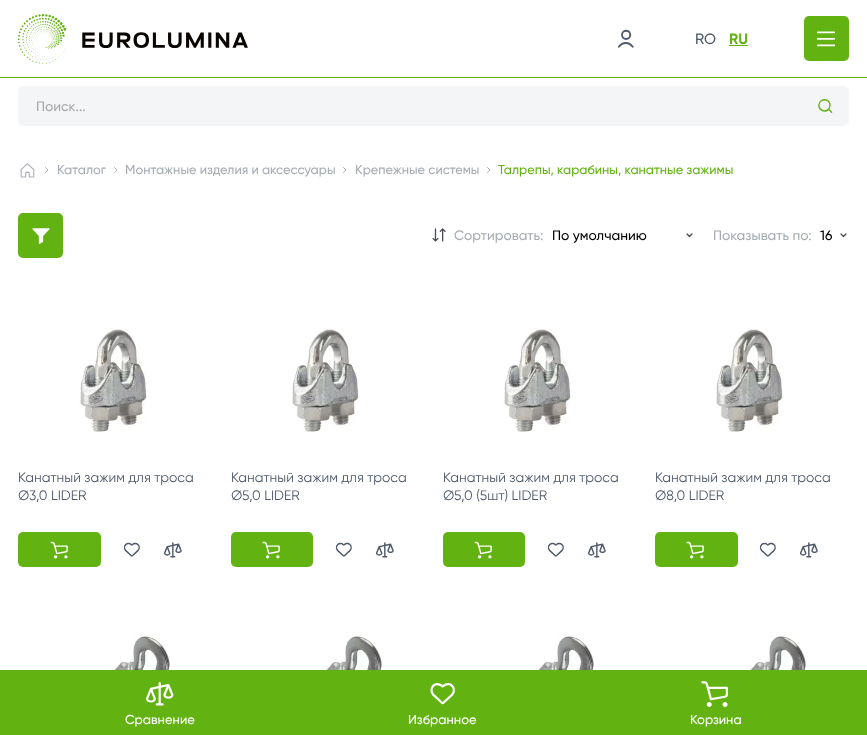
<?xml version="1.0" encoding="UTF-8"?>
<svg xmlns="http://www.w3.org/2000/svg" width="867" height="735">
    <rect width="100%" height="100%" fill="#FFFFFF"/>
    <rect x="0" y="77" width="867" height="1" fill="#62B312"/>
    <image x="18" y="14" width="230" height="50" href="img_01.png"/>
    <image x="617" y="29" width="17" height="19" href="img_02.png"/>
    <text x="695" y="44" font-family="Gilroy" font-size="15" font-weight="500" fill="#4E5869">RO</text>
    <text x="729" y="44" font-family="Gilroy" font-size="15" font-weight="700" fill="#62B312">RU</text>
    <rect x="729" y="45" width="19" height="1" fill="#62B312"/>
    <rect x="804" y="16" width="45" height="45" rx="5" fill="#62B312"/>
    <image x="816" y="31" width="19" height="16" href="img_03.png"/>
    <rect x="18" y="86" width="831" height="40" rx="5" fill="#F4F5F6"/>
    <text x="36" y="111" font-family="Gilroy" font-size="13.75" font-weight="500" fill="#A8A8A9">Поиск...</text>
    <image x="818" y="99" width="15" height="14" href="img_04.png"/>
    <image x="20" y="163" width="15" height="15" href="img_05.png"/>
    <path d="M 45.5 167.5 L 48 170 L 45.5 172.5" fill="none" stroke="#A7ACB4" stroke-width="0.9" stroke-linecap="round" stroke-linejoin="round"/>
    <text x="57" y="174" font-family="Gilroy" font-size="12.9" font-weight="500" fill="#A7ACB4">Каталог</text>
    <path d="M 114.5 167.5 L 117 170 L 114.5 172.5" fill="none" stroke="#A7ACB4" stroke-width="0.9" stroke-linecap="round" stroke-linejoin="round"/>
    <text x="125" y="174" font-family="Gilroy" font-size="12.9" font-weight="500" fill="#A7ACB4">Монтажные изделия и аксессуары</text>
    <path d="M 343.5 167.5 L 346 170 L 343.5 172.5" fill="none" stroke="#A7ACB4" stroke-width="0.9" stroke-linecap="round" stroke-linejoin="round"/>
    <text x="355" y="174" font-family="Gilroy" font-size="12.9" font-weight="500" fill="#A7ACB4">Крепежные системы</text>
    <path d="M 487.5 167.5 L 490 170 L 487.5 172.5" fill="none" stroke="#A7ACB4" stroke-width="0.9" stroke-linecap="round" stroke-linejoin="round"/>
    <text x="498" y="174" font-family="Gilroy" font-size="12.9" font-weight="500" fill="#62B312">Талрепы, карабины, канатные зажимы</text>
    <rect x="18" y="213" width="45" height="45" rx="5" fill="#62B312"/>
    <image x="32" y="228" width="18" height="16" href="img_06.png"/>
    <image x="432" y="228" width="14" height="14" href="img_07.png"/>
    <text x="454" y="240" font-family="Gilroy" font-size="13.75" font-weight="500" fill="#A7ACB4">Сортировать:</text>
    <path d="M 692 234 L 689.5 236.5 L 687 234" fill="none" stroke="#494D52" stroke-width="1.3" stroke-linecap="round" stroke-linejoin="round"/>
    <text x="552" y="240" font-family="Gilroy" font-size="13.75" font-weight="500" fill="#000000">По умолчанию</text>
    <text x="713" y="240" font-family="Gilroy" font-size="13.75" font-weight="500" fill="#A7ACB4">Показывать по:</text>
    <path d="M 846 234 L 843.5 236.5 L 841 234" fill="none" stroke="#494D52" stroke-width="1.3" stroke-linecap="round" stroke-linejoin="round"/>
    <text x="820" y="240" font-family="Gilroy" font-size="13.75" font-weight="500" fill="#000000">16</text>
    <image x="79" y="328" width="68" height="104" href="img_08.png"/>
    <text font-family="Gilroy" font-size="13.75" fill="#4E5869">
        <tspan x="18" y="482">Канатный зажим для троса</tspan>
        <tspan x="18" y="500">Ø3,0 LIDER</tspan>
    </text>
    <rect x="18" y="532" width="83" height="35" rx="5" fill="#62B312"/>
    <image x="50" y="541" width="18" height="18" href="img_09.png"/>
    <image x="123" y="542" width="17" height="15" href="img_10.png"/>
    <image x="164" y="542" width="18" height="16" href="img_11.png"/>
    <image x="291" y="328" width="68" height="104" href="img_08.png"/>
    <text font-family="Gilroy" font-size="13.75" fill="#4E5869">
        <tspan x="231" y="482">Канатный зажим для троса</tspan>
        <tspan x="231" y="500">Ø5,0 LIDER</tspan>
    </text>
    <rect x="231" y="532" width="82" height="35" rx="5" fill="#62B312"/>
    <image x="262" y="541" width="18" height="18" href="img_09.png"/>
    <image x="335" y="542" width="17" height="15" href="img_10.png"/>
    <image x="376" y="542" width="18" height="16" href="img_11.png"/>
    <image x="503" y="328" width="68" height="104" href="img_08.png"/>
    <text font-family="Gilroy" font-size="13.75" fill="#4E5869">
        <tspan x="443" y="482">Канатный зажим для троса</tspan>
        <tspan x="443" y="500">Ø5,0 (5шт) LIDER</tspan>
    </text>
    <rect x="443" y="532" width="82" height="35" rx="5" fill="#62B312"/>
    <image x="474" y="541" width="18" height="18" href="img_09.png"/>
    <image x="547" y="542" width="17" height="15" href="img_10.png"/>
    <image x="588" y="542" width="18" height="16" href="img_11.png"/>
    <image x="715" y="328" width="68" height="104" href="img_08.png"/>
    <text font-family="Gilroy" font-size="13.75" fill="#4E5869">
        <tspan x="655" y="482">Канатный зажим для троса</tspan>
        <tspan x="655" y="500">Ø8,0 LIDER</tspan>
    </text>
    <rect x="655" y="532" width="83" height="35" rx="5" fill="#62B312"/>
    <image x="686" y="541" width="18" height="18" href="img_09.png"/>
    <image x="759" y="542" width="17" height="15" href="img_12.png"/>
    <image x="800" y="542" width="18" height="16" href="img_11.png"/>
    <image x="61" y="635" width="109" height="35" href="img_13.png"/>
    <image x="273" y="635" width="109" height="35" href="img_13.png"/>
    <image x="485" y="635" width="109" height="35" href="img_13.png"/>
    <image x="697" y="635" width="109" height="35" href="img_13.png"/>
    <rect x="0" y="670" width="867" height="65" fill="#62B312"/>
    <image x="146" y="682" width="28" height="24" href="img_14.png"/>
    <text x="125" y="724" font-family="Gilroy" font-size="13" font-weight="500" fill="#FFFFFF">Сравнение</text>
    <image x="430" y="683" width="25" height="22" href="img_15.png"/>
    <text x="408" y="724" font-family="Gilroy" font-size="13" font-weight="500" fill="#FFFFFF">Избранное</text>
    <image x="701" y="681" width="27" height="26" href="img_16.png"/>
    <text x="690" y="724" font-family="Gilroy" font-size="13" font-weight="500" fill="#FFFFFF">Корзина</text>
</svg>
